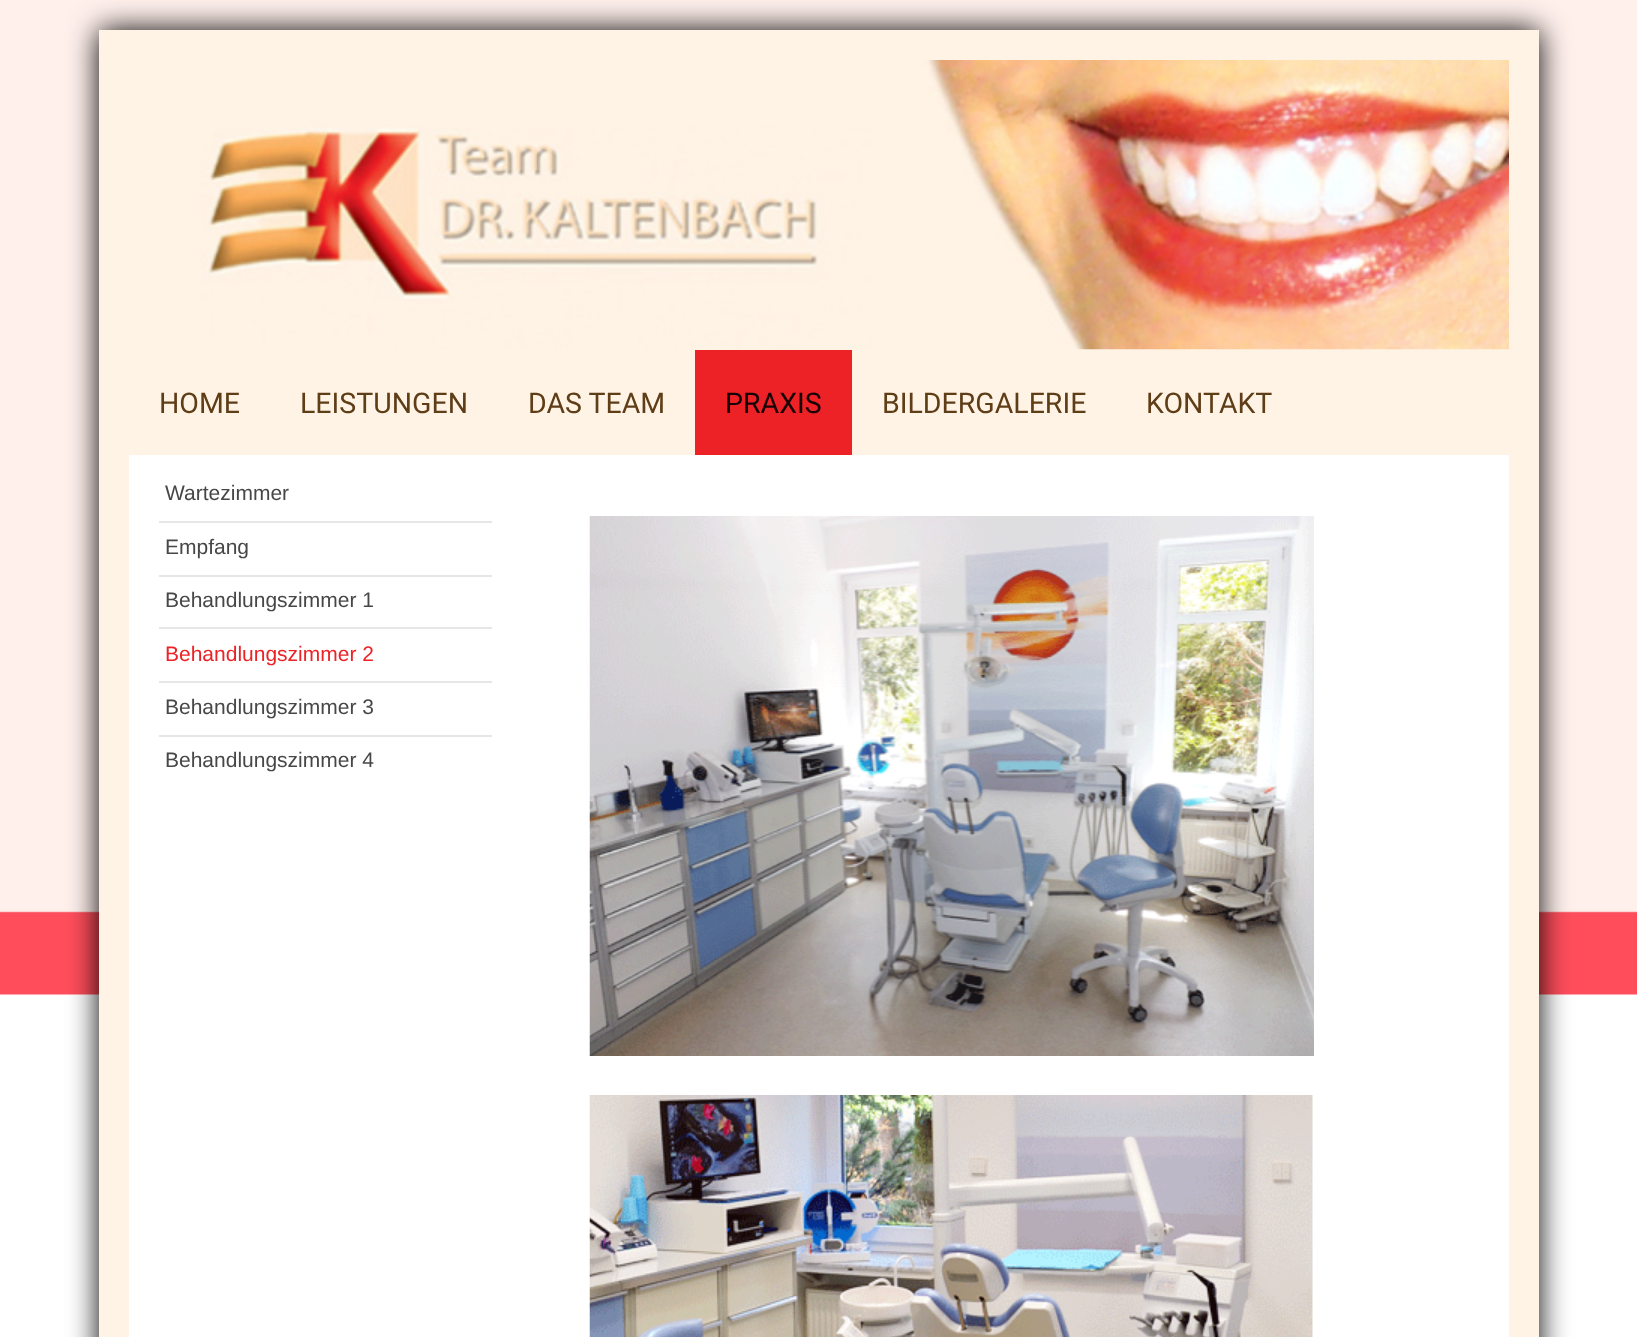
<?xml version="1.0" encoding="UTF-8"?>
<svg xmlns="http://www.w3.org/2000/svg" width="1637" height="1337">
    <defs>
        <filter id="blur1" x="-50%" y="-200%" width="200%" height="500%"><feGaussianBlur stdDeviation="15"/></filter>
    </defs>
    <rect width="100%" height="100%" fill="#FFFFFF"/>
    <image x="0" y="0" width="1637" height="995" href="img_01.png"/>
    <rect x="99" y="30" width="1440" height="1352" fill="#000000" filter="url(#blur1)"/>
    <rect x="99" y="30" width="1440" height="1307" fill="#FFF3E5"/>
    <image x="200" y="60" width="1309" height="290" href="img_02.png"/>
    <text x="159" y="413" font-family="Roboto" font-size="28.5" fill="#5E3D17">HOME</text>
    <text x="300" y="413" font-family="Roboto" font-size="28.5" fill="#5E3D17">LEISTUNGEN</text>
    <text x="528" y="413" font-family="Roboto" font-size="28.5" fill="#5E3D17">DAS TEAM</text>
    <rect x="695" y="350" width="157" height="105" fill="#EC2226"/>
    <text x="725" y="413" font-family="Roboto" font-size="28.5" fill="#180304">PRAXIS</text>
    <text x="882" y="413" font-family="Roboto" font-size="28.5" fill="#5E3D17">BILDERGALERIE</text>
    <text x="1146" y="413" font-family="Roboto" font-size="28.5" fill="#5E3D17">KONTAKT</text>
    <rect x="129" y="455" width="1380" height="882" fill="#FFFFFF"/>
    <rect x="159" y="521" width="333" height="2" fill="#E6E6E6"/>
    <text x="165" y="500" font-family="Liberation Sans" font-size="21" fill="#474747">Wartezimmer</text>
    <rect x="159" y="575" width="333" height="2" fill="#E6E6E6"/>
    <text x="165" y="554" font-family="Liberation Sans" font-size="21" fill="#474747">Empfang</text>
    <rect x="159" y="627" width="333" height="2" fill="#E6E6E6"/>
    <text x="165" y="607" font-family="Liberation Sans" font-size="21" fill="#474747">Behandlungszimmer 1</text>
    <rect x="159" y="681" width="333" height="2" fill="#E6E6E6"/>
    <text x="165" y="661" font-family="Liberation Sans" font-size="21" fill="#EC2226">Behandlungszimmer 2</text>
    <rect x="159" y="735" width="333" height="2" fill="#E6E6E6"/>
    <text x="165" y="714" font-family="Liberation Sans" font-size="21" fill="#474747">Behandlungszimmer 3</text>
    <text x="165" y="767" font-family="Liberation Sans" font-size="21" fill="#474747">Behandlungszimmer 4</text>
    <image x="589" y="516" width="725" height="540" href="img_03.png"/>
    <image x="589" y="1095" width="724" height="242" href="img_04.png"/>
</svg>
